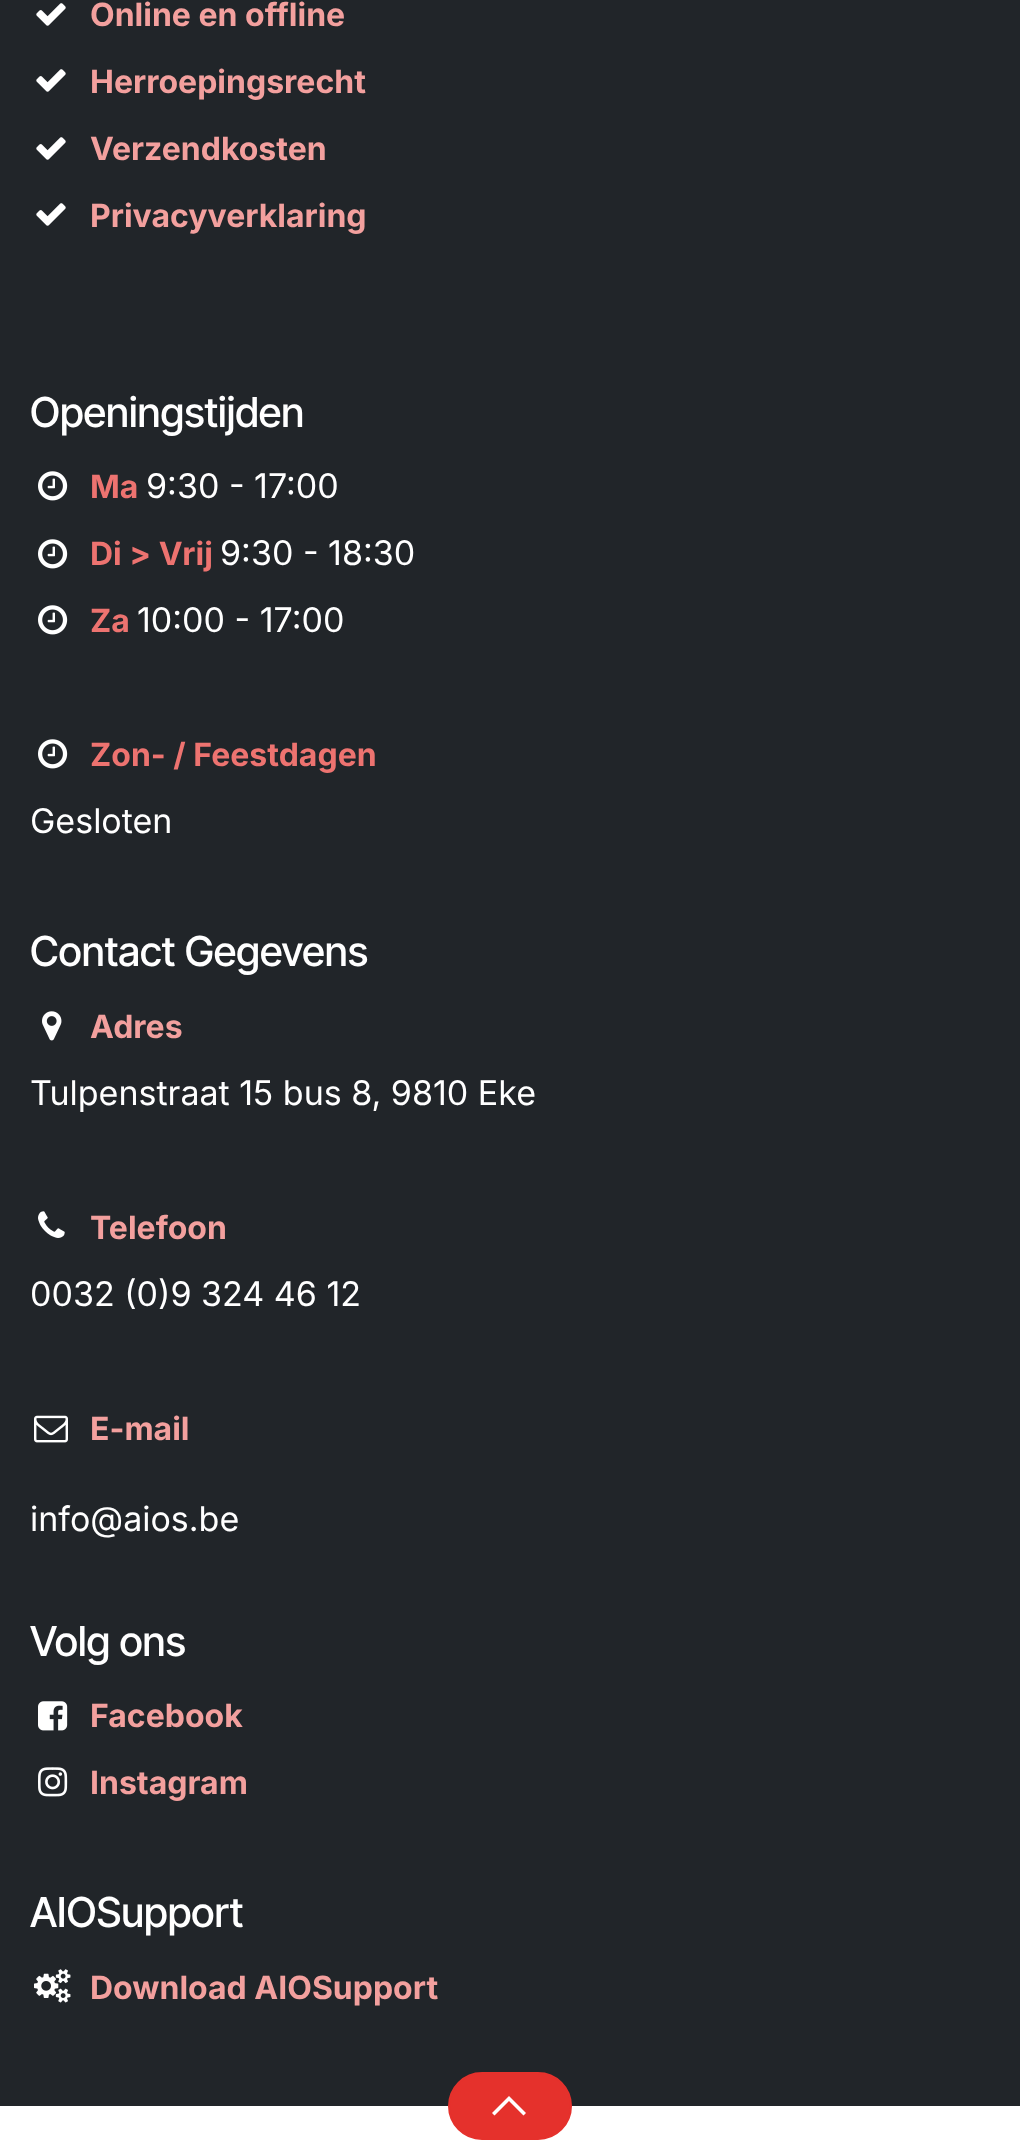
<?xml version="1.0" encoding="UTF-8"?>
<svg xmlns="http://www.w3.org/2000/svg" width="1020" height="2140">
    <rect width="100%" height="100%" fill="#FFFFFF"/>
    <rect x="0" y="0" width="1020" height="2106" fill="#212529"/>
    <image x="36" y="3" width="30" height="23" href="img_01.png"/>
    <text x="90" y="26" font-family="Inter" font-size="32" font-weight="700" fill="#F3A09E">Online en offline</text>
    <image x="36" y="69" width="30" height="23" href="img_01.png"/>
    <text x="90" y="93" font-family="Inter" font-size="32" font-weight="700" fill="#F3A09E">Herroepingsrecht</text>
    <image x="36" y="137" width="30" height="23" href="img_01.png"/>
    <text x="90" y="160" font-family="Inter" font-size="32" font-weight="700" fill="#F3A09E">Verzendkosten</text>
    <image x="36" y="203" width="30" height="23" href="img_01.png"/>
    <text x="90" y="227" font-family="Inter" font-size="32" font-weight="700" fill="#F3A09E">Privacyverklaring</text>
    <text x="30" y="427" font-family="Inter Tight" font-size="41.25" font-weight="500" fill="#FFFFFF">Openingstijden</text>
    <image x="38" y="471" width="30" height="30" href="img_02.png"/>
    <text x="90" y="498" font-family="Inter" font-size="32" font-weight="700" fill="#ED7370">Ma</text>
    <text x="146" y="498" font-family="Inter" font-size="34" fill="#FFFFFF">9:30 - 17:00</text>
    <image x="38" y="539" width="30" height="30" href="img_02.png"/>
    <text x="90" y="565" font-family="Inter" font-size="32" font-weight="700" fill="#ED7370">Di &gt; Vrij</text>
    <text x="220" y="565" font-family="Inter" font-size="34" fill="#FFFFFF">9:30 - 18:30</text>
    <image x="38" y="605" width="30" height="30" href="img_02.png"/>
    <text x="90" y="632" font-family="Inter" font-size="32" font-weight="700" fill="#ED7370">Za</text>
    <text x="137" y="632" font-family="Inter" font-size="34" fill="#FFFFFF">10:00 - 17:00</text>
    <image x="38" y="739" width="30" height="30" href="img_02.png"/>
    <text x="90" y="766" font-family="Inter" font-size="32" font-weight="700" fill="#ED7370">Zon- / Feestdagen</text>
    <text x="30" y="833" font-family="Inter" font-size="34" fill="#FFFFFF">Gesloten</text>
    <text x="30" y="966" font-family="Inter Tight" font-size="41.25" font-weight="500" fill="#FFFFFF">Contact Gegevens</text>
    <image x="42" y="1011" width="20" height="30" href="img_03.png"/>
    <text x="90" y="1038" font-family="Inter" font-size="32" font-weight="700" fill="#F3A09E">Adres</text>
    <text x="30" y="1105" font-family="Inter" font-size="34" fill="#FFFFFF">Tulpenstraat 15 bus 8, 9810 Eke</text>
    <image x="38" y="1211" width="27" height="27" href="img_04.png"/>
    <text x="90" y="1239" font-family="Inter" font-size="32" font-weight="700" fill="#F3A09E">Telefoon</text>
    <text x="30" y="1306" font-family="Inter" font-size="34" fill="#FFFFFF">0032 (0)9 324 46 12</text>
    <image x="34" y="1415" width="34" height="28" href="img_05.png"/>
    <text x="90" y="1440" font-family="Inter" font-size="32" font-weight="700" fill="#F3A09E">E-mail</text>
    <text x="30" y="1531" font-family="Inter" font-size="34" fill="#FFFFFF">info@aios.be</text>
    <text x="30" y="1656" font-family="Inter Tight" font-size="41.25" font-weight="500" fill="#FFFFFF">Volg ons</text>
    <image x="38" y="1701" width="30" height="30" href="img_06.png"/>
    <text x="90" y="1727" font-family="Inter" font-size="32" font-weight="700" fill="#F3A09E">Facebook</text>
    <image x="38" y="1767" width="30" height="30" href="img_07.png"/>
    <text x="90" y="1794" font-family="Inter" font-size="32" font-weight="700" fill="#F3A09E">Instagram</text>
    <text x="30" y="1927" font-family="Inter Tight" font-size="41.25" font-weight="500" fill="#FFFFFF">AIOSupport</text>
    <image x="34" y="1969" width="37" height="34" href="img_08.png"/>
    <text x="90" y="1999" font-family="Inter" font-size="32" font-weight="700" fill="#F3A09E">Download AIOSupport</text>
    <rect x="449" y="2073" width="122" height="66" rx="33" fill="#E5312C" stroke="#E5312C" stroke-width="2"/>
    <path d="M 509 2096 L 526 2113 L 523.5 2115.5 L 509 2101 L 494.5 2115.5 L 492 2113 Z" fill="#FFFFFF"/>
</svg>
